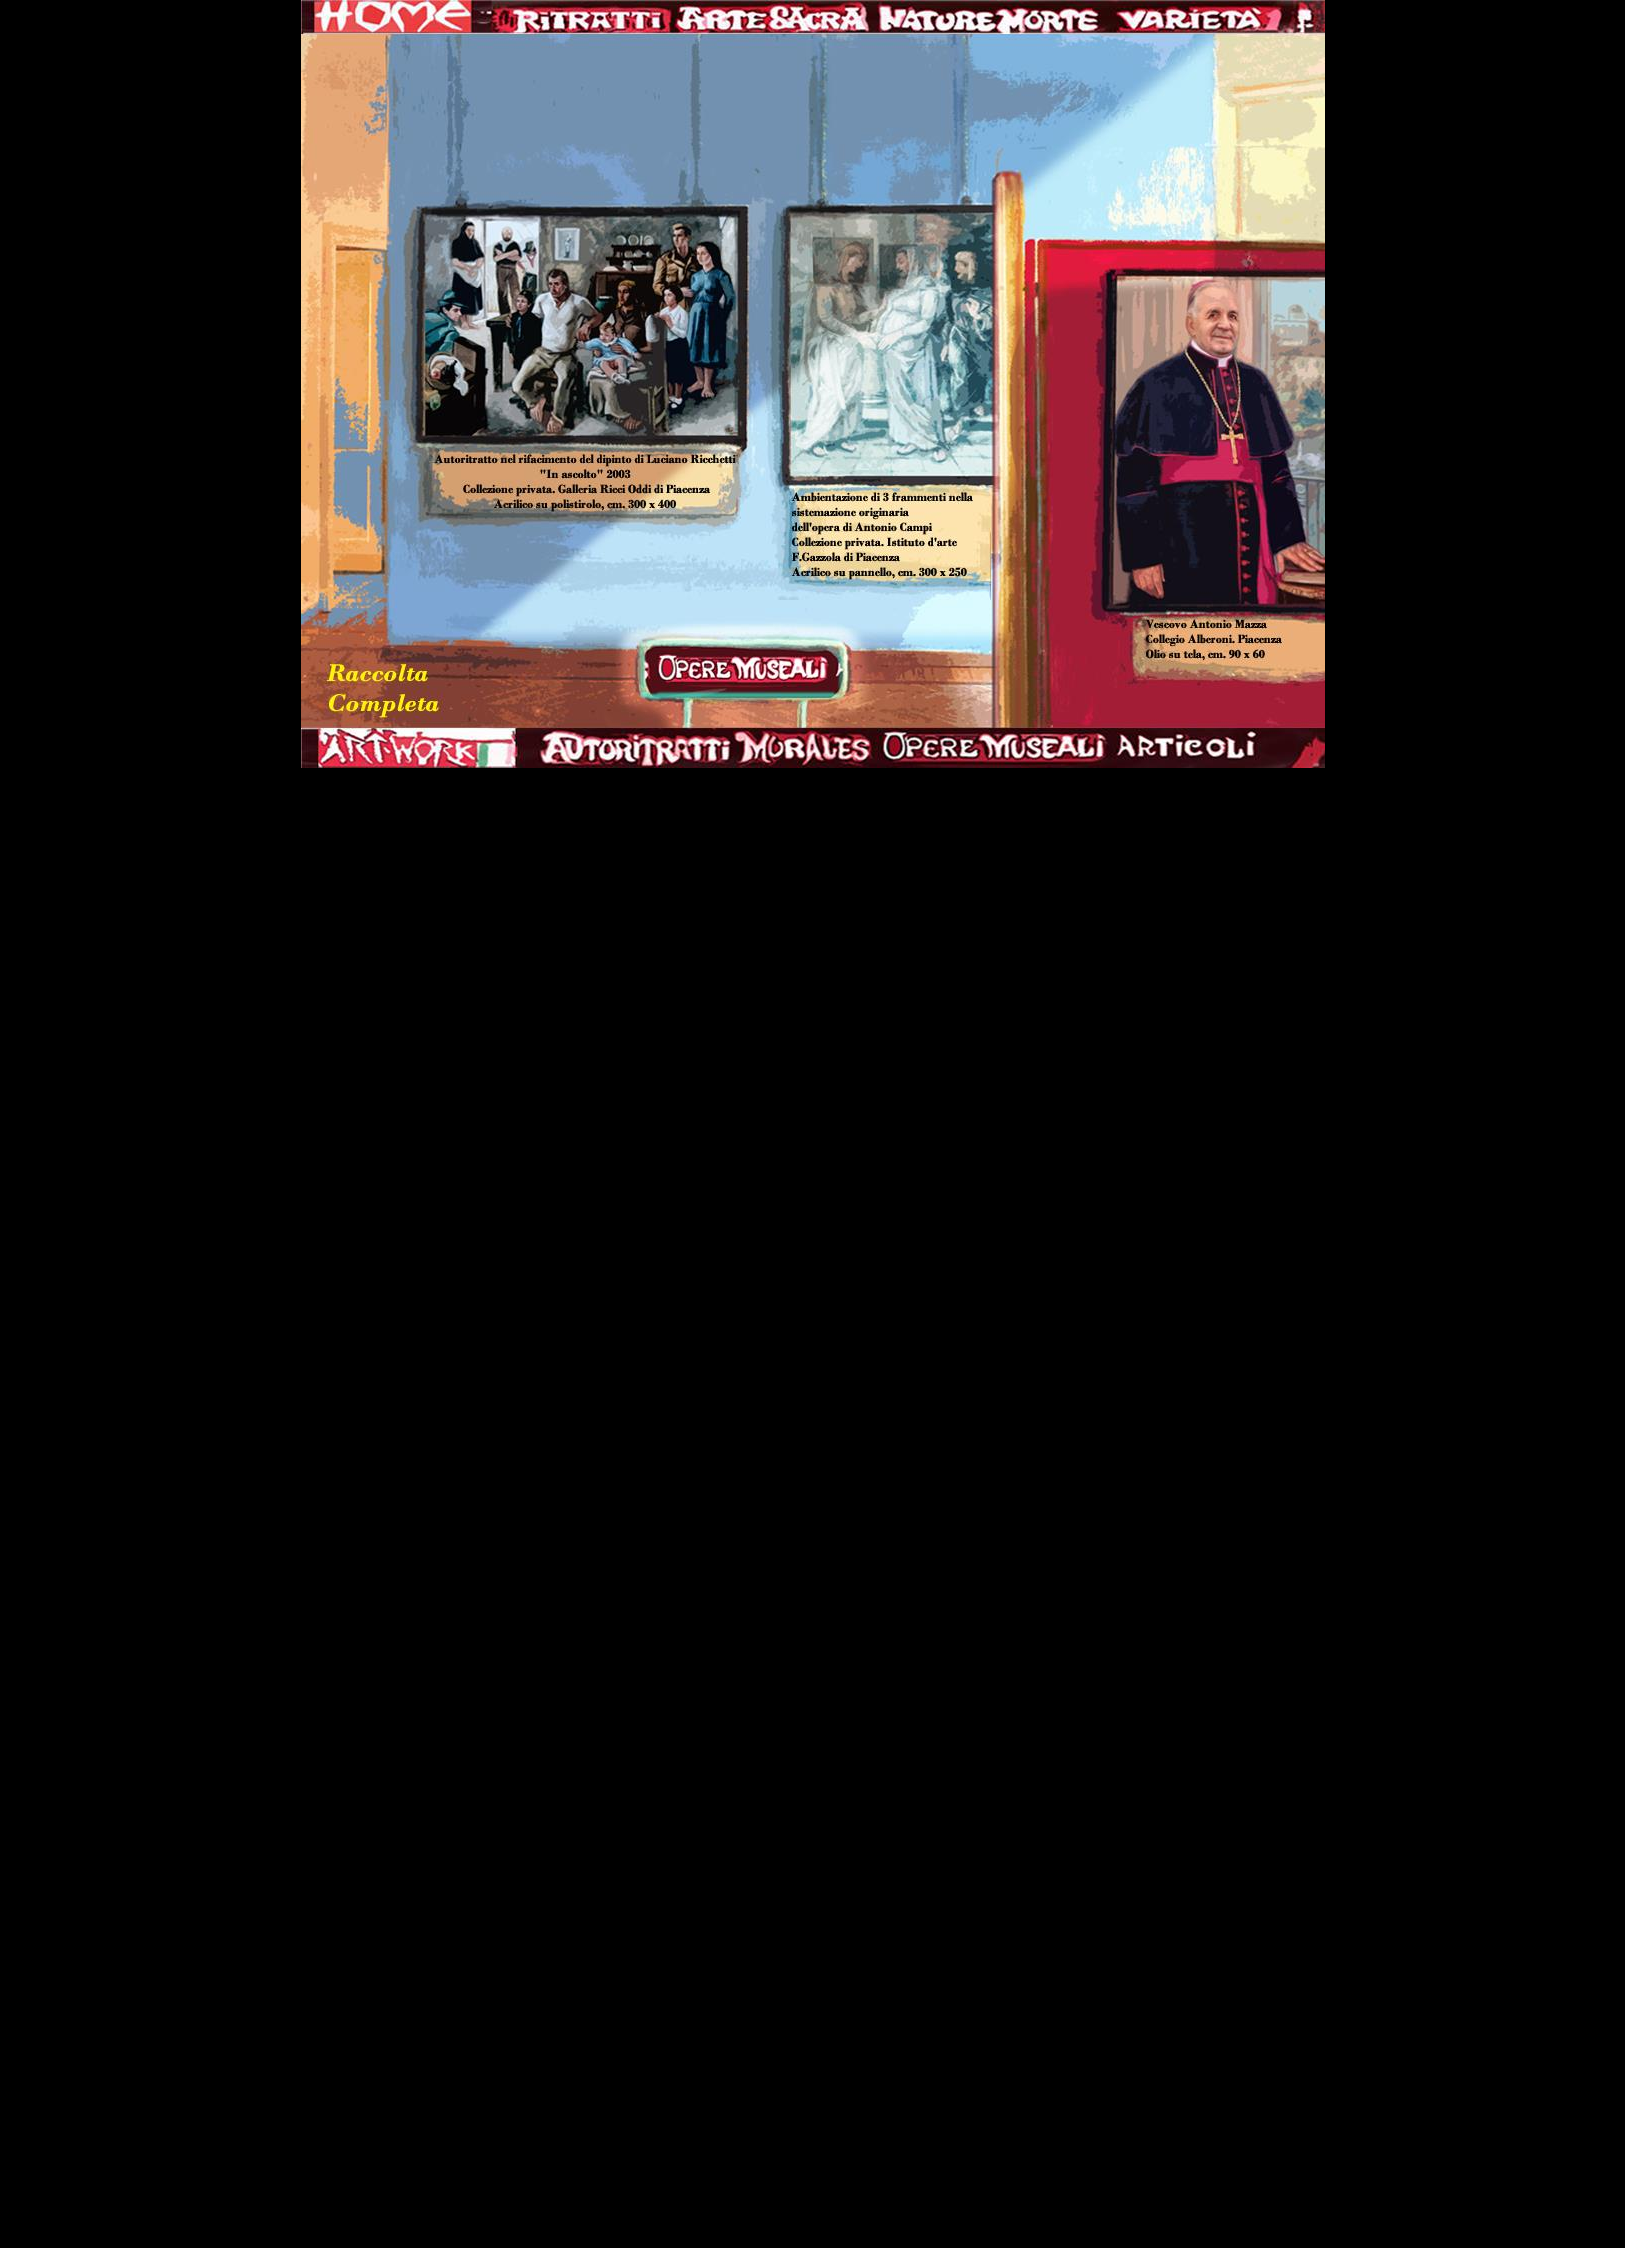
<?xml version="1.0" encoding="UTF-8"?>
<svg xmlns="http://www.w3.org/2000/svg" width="1625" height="2248">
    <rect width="100%" height="100%" fill="#000000"/>
    <image x="301" y="0" width="1024" height="768" href="img_01.png"/>
</svg>
